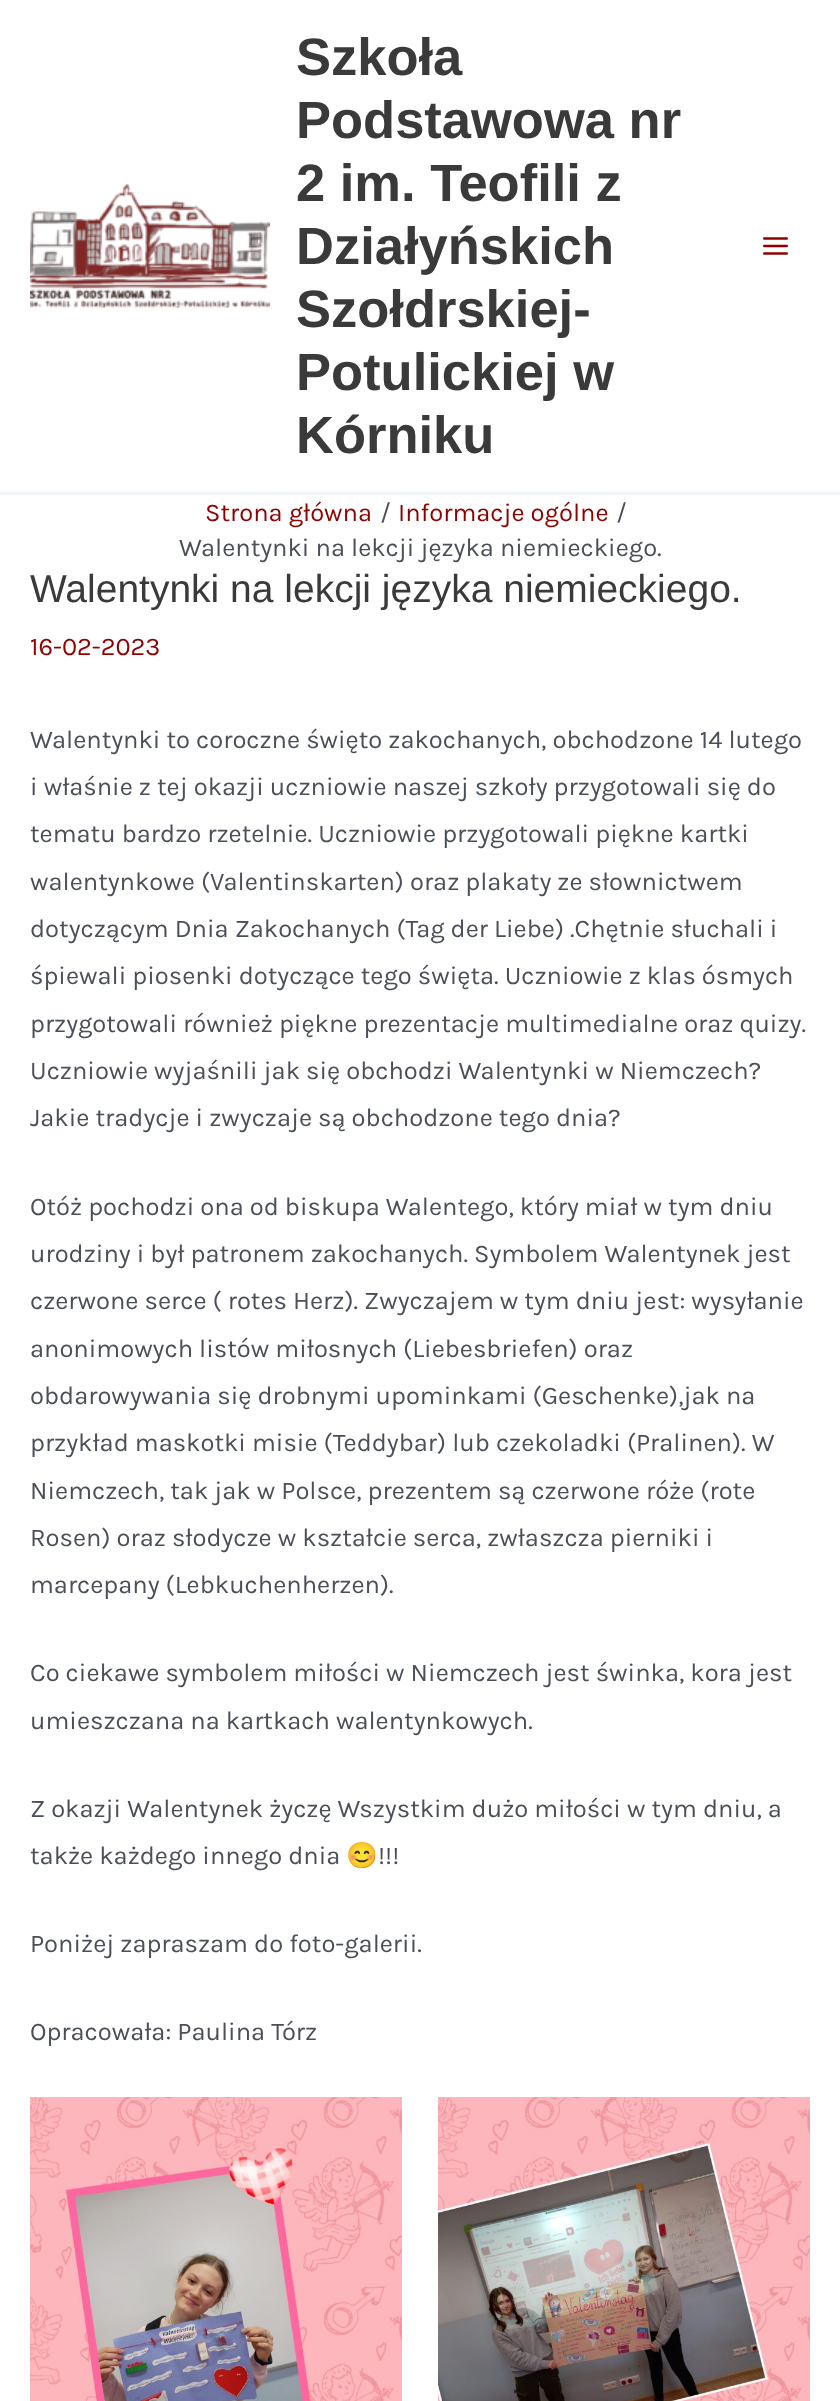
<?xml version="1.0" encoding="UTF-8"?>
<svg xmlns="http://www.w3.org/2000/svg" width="840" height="2401">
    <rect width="100%" height="100%" fill="#FFFFFF"/>
    <rect x="0" y="492" width="840" height="3" fill="#F2F5F7"/>
    <image x="30" y="184" width="240" height="124" href="img_01.png"/>
    <text font-family="Liberation Sans" font-size="52.5" font-weight="700" fill="#3A3A3A">
        <tspan x="296" y="75">Szkoła</tspan>
        <tspan x="296" y="138">Podstawowa nr</tspan>
        <tspan x="296" y="201">2 im. Teofili z</tspan>
        <tspan x="296" y="264">Działyńskich</tspan>
        <tspan x="296" y="327">Szołdrskiej-</tspan>
        <tspan x="296" y="390">Potulickiej w</tspan>
        <tspan x="296" y="453">Kórniku</tspan>
    </text>
    <image x="763" y="237" width="25" height="18" href="img_02.png"/>
    <text x="205" y="521" font-family="Karla" font-size="25.5" fill="#8F0000">Strona główna</text>
    <text x="380" y="521" font-family="Karla" font-size="25.5" fill="#4B4F58">/</text>
    <text x="398" y="521" font-family="Karla" font-size="25.5" fill="#8F0000">Informacje ogólne</text>
    <text x="616" y="521" font-family="Karla" font-size="25.5" fill="#4B4F58">/</text>
    <text x="179" y="556" font-family="Karla" font-size="25.5" fill="#4B4F58">Walentynki na lekcji języka niemieckiego.</text>
    <text x="30" y="602" font-family="Liberation Sans" font-size="39" fill="#3A3A3A">Walentynki na lekcji języka niemieckiego.</text>
    <text x="30" y="655" font-family="Karla" font-size="25.5" fill="#8F0000">16-02-2023</text>
    <text font-family="Karla" font-size="25.5" fill="#4B4F58">
        <tspan x="30" y="748">Walentynki to coroczne święto zakochanych, obchodzone 14 lutego</tspan>
        <tspan x="30" y="795">i właśnie z tej okazji uczniowie naszej szkoły przygotowali się do</tspan>
        <tspan x="30" y="842">tematu bardzo rzetelnie. Uczniowie przygotowali piękne kartki</tspan>
        <tspan x="30" y="890">walentynkowe (Valentinskarten) oraz plakaty ze słownictwem</tspan>
        <tspan x="30" y="937">dotyczącym Dnia Zakochanych (Tag der Liebe) .Chętnie słuchali i</tspan>
        <tspan x="30" y="984">śpiewali piosenki dotyczące tego święta. Uczniowie z klas ósmych</tspan>
        <tspan x="30" y="1032">przygotowali również piękne prezentacje multimedialne oraz quizy.</tspan>
        <tspan x="30" y="1079">Uczniowie wyjaśnili jak się obchodzi Walentynki w Niemczech?</tspan>
        <tspan x="30" y="1126">Jakie tradycje i zwyczaje są obchodzone tego dnia?</tspan>
    </text>
    <text font-family="Karla" font-size="25.5" fill="#4B4F58">
        <tspan x="30" y="1215">Otóż pochodzi ona od biskupa Walentego, który miał w tym dniu</tspan>
        <tspan x="30" y="1262">urodziny i był patronem zakochanych. Symbolem Walentynek jest</tspan>
        <tspan x="30" y="1309">czerwone serce ( rotes Herz). Zwyczajem w tym dniu jest: wysyłanie</tspan>
        <tspan x="30" y="1357">anonimowych listów miłosnych (Liebesbriefen) oraz</tspan>
        <tspan x="30" y="1404">obdarowywania się drobnymi upominkami (Geschenke),jak na</tspan>
        <tspan x="30" y="1451">przykład maskotki misie (Teddybar) lub czekoladki (Pralinen). W</tspan>
        <tspan x="30" y="1499">Niemczech, tak jak w Polsce, prezentem są czerwone róże (rote</tspan>
        <tspan x="30" y="1546">Rosen) oraz słodycze w kształcie serca, zwłaszcza pierniki i</tspan>
        <tspan x="30" y="1593">marcepany (Lebkuchenherzen).</tspan>
    </text>
    <text font-family="Karla" font-size="25.5" fill="#4B4F58">
        <tspan x="30" y="1681">Co ciekawe symbolem miłości w Niemczech jest świnka, kora jest</tspan>
        <tspan x="30" y="1729">umieszczana na kartkach walentynkowych.</tspan>
    </text>
    <text font-family="Karla" font-size="25.5" fill="#4B4F58">
        <tspan x="30" y="1817">Z okazji Walentynek życzę Wszystkim dużo miłości w tym dniu, a</tspan>
        <tspan x="30" y="1864">także każdego innego dnia</tspan>
    </text>
    <text x="346" y="1864" font-family="Noto Color Emoji" font-size="25.5" fill="#4B4F58">😊</text>
    <text x="378" y="1864" font-family="Karla" font-size="25.5" fill="#4B4F58">!!!</text>
    <text x="30" y="1952" font-family="Karla" font-size="25.5" fill="#4B4F58">Poniżej zapraszam do foto-galerii.</text>
    <text x="30" y="2040" font-family="Karla" font-size="25.5" fill="#4B4F58">Opracowała: Paulina Tórz</text>
    <image x="30" y="2097" width="372" height="304" href="img_03.png"/>
    <image x="438" y="2097" width="372" height="304" href="img_04.png"/>
</svg>
